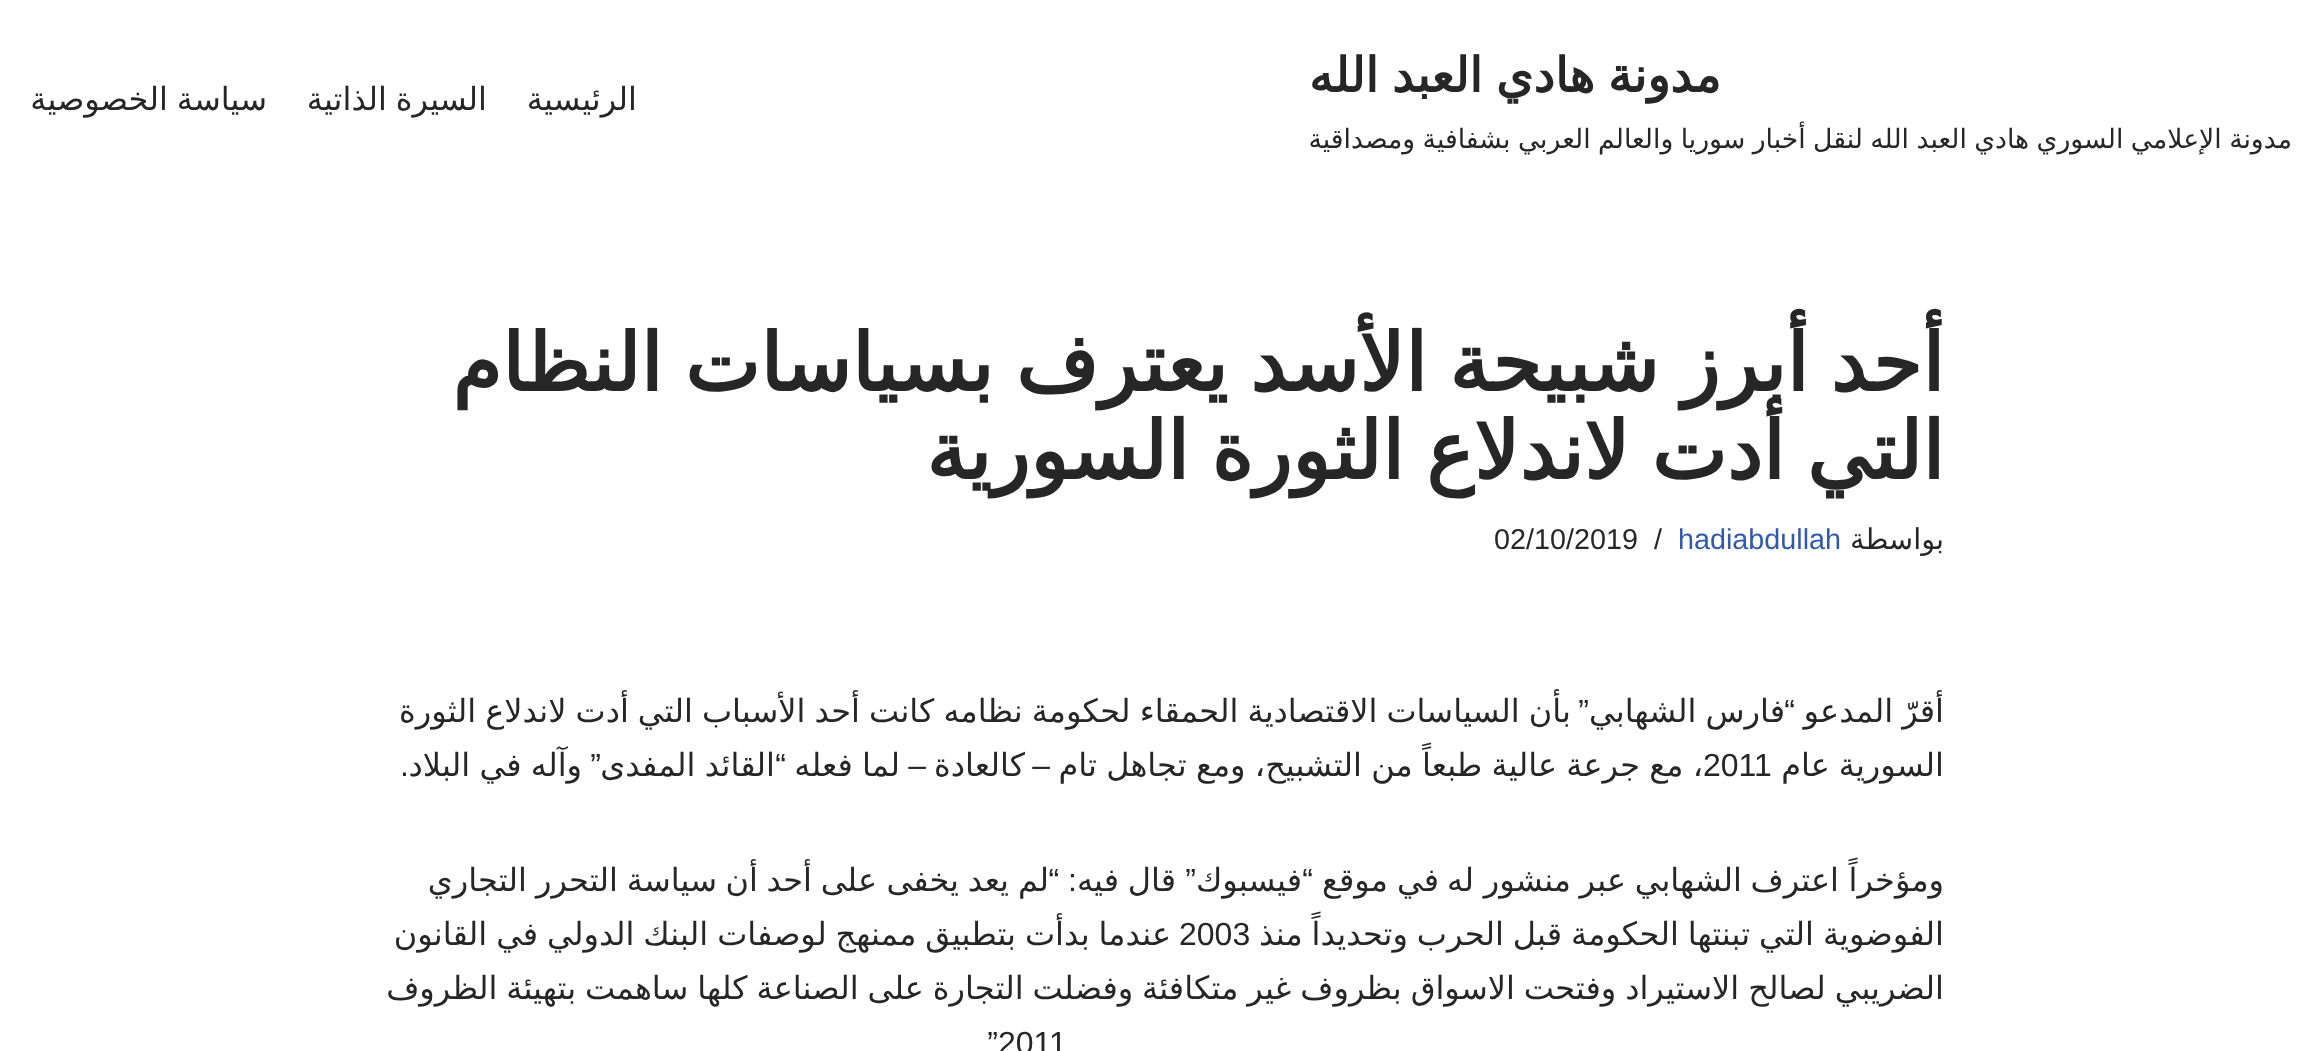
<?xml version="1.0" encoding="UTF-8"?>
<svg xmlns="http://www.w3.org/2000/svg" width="2321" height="1051">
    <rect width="100%" height="100%" fill="#FFFFFF"/>
    <text x="1721" y="92" word-spacing="-2" font-family="DejaVu Sans" font-size="48" font-weight="700" direction="rtl" fill="#272626">مدونة هادي العبد الله</text>
    <text x="2292" y="148" word-spacing="-1" font-family="DejaVu Sans" font-size="26.65" direction="rtl" fill="#272626">مدونة الإعلامي السوري هادي العبد الله لنقل أخبار سوريا والعالم العربي بشفافية ومصداقية</text>
    <text x="637" y="110" font-family="DejaVu Sans" font-size="32" direction="rtl" fill="#272626">الرئيسية</text>
    <text x="487" y="110" word-spacing="-1.25" font-family="DejaVu Sans" font-size="32" direction="rtl" fill="#272626">السيرة الذاتية</text>
    <text x="267" y="110" word-spacing="-1.25" font-family="DejaVu Sans" font-size="32" direction="rtl" fill="#272626">سياسة الخصوصية</text>
    <text font-family="DejaVu Sans" font-size="80" font-weight="700" direction="rtl" fill="#272626">
        <tspan x="1944" y="391" word-spacing="-3.25">أحد أبرز شبيحة الأسد يعترف بسياسات النظام</tspan>
        <tspan x="1944" y="479" word-spacing="-3.25">التي أدت لاندلاع الثورة السورية</tspan>
    </text>
    <text x="1944" y="549" font-family="DejaVu Sans" font-size="28.75" direction="rtl" fill="#272626">بواسطة</text>
    <text x="1678" y="549" font-family="Liberation Sans" font-size="28.75" fill="#2F5AAE">hadiabdullah</text>
    <text x="1654" y="549" font-family="Liberation Sans" font-size="28.75" fill="#272626">/</text>
    <text x="1494" y="549" font-family="Liberation Sans" font-size="28.75" fill="#272626">02/10/2019</text>
    <text x="1944" y="722" word-spacing="-1.1" font-family="DejaVu Sans" font-size="32" direction="rtl" fill="#272626">أقرّ المدعو</text>
    <text x="1795" y="722" font-family="Liberation Sans" font-size="32" direction="rtl" fill="#272626">“</text>
    <text x="1785" y="722" word-spacing="-1.1" font-family="DejaVu Sans" font-size="32" direction="rtl" fill="#272626">فارس الشهابي</text>
    <text x="1571" y="722" word-spacing="-1.1" font-family="DejaVu Sans" font-size="32" direction="rtl" fill="#272626">بأن السياسات الاقتصادية الحمقاء لحكومة نظامه كانت أحد الأسباب التي أدت لاندلاع الثورة</text>
    <text x="1589" y="722" font-family="Liberation Sans" font-size="32" direction="rtl" fill="#272626">”</text>
    <text x="1944" y="776" word-spacing="-1.25" font-family="DejaVu Sans" font-size="32" direction="rtl" fill="#272626">السورية عام</text>
    <text x="1703" y="776" word-spacing="-0.9" font-family="DejaVu Sans" font-size="32" direction="rtl" fill="#272626">، مع جرعة عالية طبعاً من التشبيح، ومع تجاهل تام</text>
    <text x="1703" y="776" font-family="Liberation Sans" font-size="32" fill="#272626">2011</text>
    <text x="1025" y="776" font-family="DejaVu Sans" font-size="32" direction="rtl" fill="#272626">كالعادة</text>
    <text x="900" y="776" word-spacing="-0.9" font-family="DejaVu Sans" font-size="32" direction="rtl" fill="#272626">لما فعله</text>
    <text x="786" y="776" font-family="Liberation Sans" font-size="32" direction="rtl" fill="#272626">“</text>
    <text x="775" y="776" word-spacing="-0.9" font-family="DejaVu Sans" font-size="32" direction="rtl" fill="#272626">القائد المفدى</text>
    <text x="601" y="776" font-family="Liberation Sans" font-size="32" direction="rtl" fill="#272626">”</text>
    <text x="582" y="776" word-spacing="-0.9" font-family="DejaVu Sans" font-size="32" direction="rtl" fill="#272626">وآله في البلاد</text>
    <text x="1050" y="776" font-family="Liberation Sans" font-size="32" direction="rtl" fill="#272626">–</text>
    <text x="926" y="776" font-family="Liberation Sans" font-size="32" direction="rtl" fill="#272626">–</text>
    <text x="409" y="776" font-family="Liberation Sans" font-size="32" direction="rtl" fill="#272626">.</text>
    <text x="1944" y="891" font-family="DejaVu Sans" font-size="32" direction="rtl" fill="#272626">ومؤخراً</text>
    <text x="1839" y="891" font-family="DejaVu Sans" font-size="32" direction="rtl" fill="#272626">اعترف</text>
    <text x="1742" y="891" font-family="DejaVu Sans" font-size="32" direction="rtl" fill="#272626">الشهابي</text>
    <text x="1626" y="891" font-family="DejaVu Sans" font-size="32" direction="rtl" fill="#272626">عبر</text>
    <text x="1571" y="891" font-family="DejaVu Sans" font-size="32" direction="rtl" fill="#272626">منشور</text>
    <text x="1474" y="891" font-family="DejaVu Sans" font-size="32" direction="rtl" fill="#272626">له</text>
    <text x="1439" y="891" font-family="DejaVu Sans" font-size="32" direction="rtl" fill="#272626">في</text>
    <text x="1388" y="891" font-family="DejaVu Sans" font-size="32" direction="rtl" fill="#272626">موقع</text>
    <text x="1313" y="891" font-family="Liberation Sans" font-size="32" direction="rtl" fill="#272626">“</text>
    <text x="1302" y="891" font-family="DejaVu Sans" font-size="32" direction="rtl" fill="#272626">فيسبوك</text>
    <text x="1196" y="891" font-family="Liberation Sans" font-size="32" direction="rtl" fill="#272626">”</text>
    <text x="1176" y="891" font-family="DejaVu Sans" font-size="32" direction="rtl" fill="#272626">قال</text>
    <text x="1119" y="891" font-family="DejaVu Sans" font-size="32" direction="rtl" fill="#272626">فيه</text>
    <text x="1077" y="891" font-family="Liberation Sans" font-size="32" direction="rtl" fill="#272626">: “</text>
    <text x="1049" y="891" font-family="DejaVu Sans" font-size="32" direction="rtl" fill="#272626">لم</text>
    <text x="1009" y="891" font-family="DejaVu Sans" font-size="32" direction="rtl" fill="#272626">يعد</text>
    <text x="959" y="891" font-family="DejaVu Sans" font-size="32" direction="rtl" fill="#272626">يخفى</text>
    <text x="877" y="891" font-family="DejaVu Sans" font-size="32" direction="rtl" fill="#272626">على</text>
    <text x="812" y="891" font-family="DejaVu Sans" font-size="32" direction="rtl" fill="#272626">أحد</text>
    <text x="758" y="891" font-family="DejaVu Sans" font-size="32" direction="rtl" fill="#272626">أن</text>
    <text x="717" y="891" font-family="DejaVu Sans" font-size="32" direction="rtl" fill="#272626">سياسة</text>
    <text x="618" y="891" font-family="DejaVu Sans" font-size="32" direction="rtl" fill="#272626">التحرر</text>
    <text x="527" y="891" font-family="DejaVu Sans" font-size="32" direction="rtl" fill="#272626">التجاري</text>
    <text x="1944" y="945" word-spacing="-1.25" font-family="DejaVu Sans" font-size="32" direction="rtl" fill="#272626">الفوضوية التي تبنتها الحكومة قبل الحرب وتحديداً منذ</text>
    <text x="1179" y="945" font-family="Liberation Sans" font-size="32" fill="#272626">2003</text>
    <text x="1171" y="945" word-spacing="-1.25" font-family="DejaVu Sans" font-size="32" direction="rtl" fill="#272626">عندما بدأت بتطبيق ممنهج لوصفات البنك الدولي في القانون</text>
    <text x="1944" y="999" word-spacing="-1.25" font-family="DejaVu Sans" font-size="32" direction="rtl" fill="#272626">الضريبي لصالح الاستيراد وفتحت الاسواق بظروف غير متكافئة وفضلت التجارة على الصناعة كلها ساهمت بتهيئة الظروف</text>
    <text x="998" y="1054" font-family="Liberation Sans" font-size="32" fill="#272626">2011</text>
    <text x="998" y="1054" font-family="Liberation Sans" font-size="32" direction="rtl" fill="#272626">”</text>
</svg>
